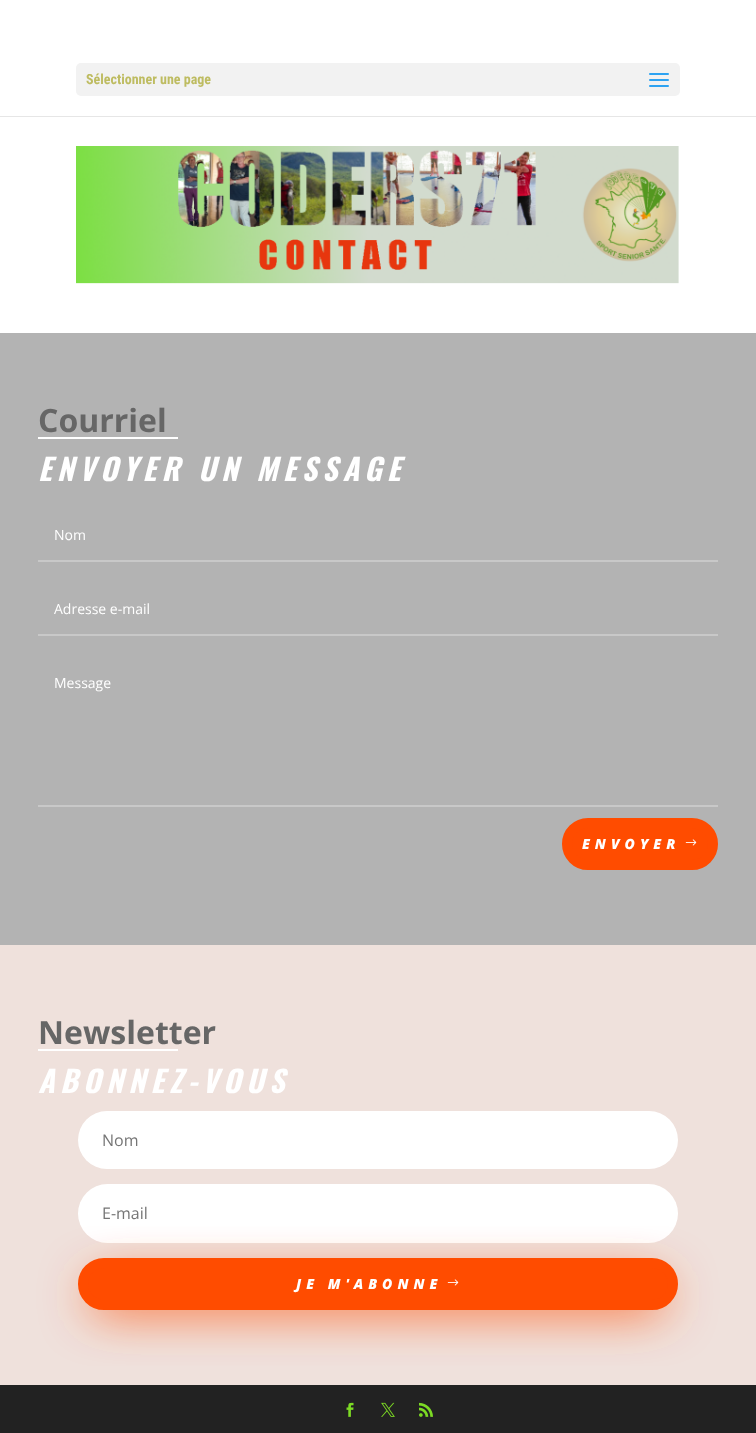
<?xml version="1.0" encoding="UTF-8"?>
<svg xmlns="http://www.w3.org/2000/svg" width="756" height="1433">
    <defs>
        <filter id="blur1" x="-50%" y="-200%" width="200%" height="500%"><feGaussianBlur stdDeviation="25"/></filter>
    </defs>
    <rect width="100%" height="100%" fill="#FFFFFF"/>
    <rect x="0" y="116" width="756" height="1" fill="#E6E6E6"/>
    <rect x="76" y="63" width="604" height="33" rx="5" fill="#F2F2F2"/>
    <text x="86" y="84" font-family="Roboto Condensed" font-size="14" font-weight="700" fill="#BEBC61">Sélectionner une page</text>
    <image x="649" y="73" width="20" height="14" href="img_01.png"/>
    <image x="76" y="146" width="603" height="138" href="img_02.png"/>
    <rect x="0" y="333" width="756" height="612" fill="#B3B3B3"/>
    <text x="38" y="432" font-family="Open Sans" font-size="32" font-weight="700" fill="#666666">Courriel</text>
    <rect x="38" y="437" width="140" height="2" fill="#FFFFFF"/>
    <text x="38" y="481" font-family="Oswald" font-size="30" font-weight="700" font-style="italic" letter-spacing="5.4" fill="#FFFFFF">ENVOYER UN MESSAGE</text>
    <rect x="38" y="560" width="680" height="2" fill="#C8C8C8"/>
    <text x="54" y="540" font-family="Open Sans" font-size="14" fill="#FFFFFF">Nom</text>
    <rect x="38" y="634" width="680" height="2" fill="#C8C8C8"/>
    <text x="54" y="614" font-family="Open Sans" font-size="14" fill="#FFFFFF">Adresse e-mail</text>
    <rect x="38" y="805" width="680" height="2" fill="#C8C8C8"/>
    <text x="54" y="688" font-family="Open Sans" font-size="14" fill="#FFFFFF">Message</text>
    <rect x="567" y="823" width="146" height="42" rx="21" fill="#FF4C00" stroke="#FF4C00" stroke-width="10"/>
    <text x="582" y="849" font-family="Open Sans" font-size="14" font-weight="800" font-style="italic" letter-spacing="5" fill="#FFFFFF">ENVOYER</text>
    <image x="685" y="839" width="12" height="7" href="img_03.png"/>
    <rect x="0" y="945" width="756" height="440" fill="#EFE1DC"/>
    <text x="38" y="1044" font-family="Open Sans" font-size="32" font-weight="700" fill="#666666">Newsletter</text>
    <rect x="38" y="1049" width="140" height="2" fill="#FFFFFF"/>
    <text x="38" y="1093" font-family="Oswald" font-size="30" font-weight="700" font-style="italic" letter-spacing="5.4" fill="#FFFFFF">ABONNEZ-VOUS</text>
    <rect x="78" y="1111" width="600" height="58" rx="29" fill="#FFFFFF"/>
    <text x="102" y="1146" font-family="Open Sans" font-size="16" fill="#757575">Nom</text>
    <rect x="78" y="1184" width="600" height="59" rx="29.5" fill="#FFFFFF"/>
    <text x="102" y="1219" font-family="Open Sans" font-size="16" fill="#757575">E-mail</text>
    <rect x="0" y="1385" width="756" height="48" fill="#222222"/>
    <rect x="90" y="1282" width="576" height="28" rx="14" fill="#FF4C00" filter="url(#blur1)"/>
    <rect x="83" y="1263" width="590" height="42" rx="21" fill="#FF4C00" stroke="#FF4C00" stroke-width="10"/>
    <text x="296" y="1289" font-family="Open Sans" font-size="14" font-weight="800" font-style="italic" letter-spacing="5" fill="#FFFFFF">JE M'ABONNE</text>
    <image x="447" y="1279" width="12" height="7" href="img_03.png"/>
    <image x="346" y="1402" width="8" height="15" href="img_04.png"/>
    <image x="381" y="1402" width="14" height="15" href="img_05.png"/>
    <image x="419" y="1402" width="14" height="15" href="img_06.png"/>
</svg>
